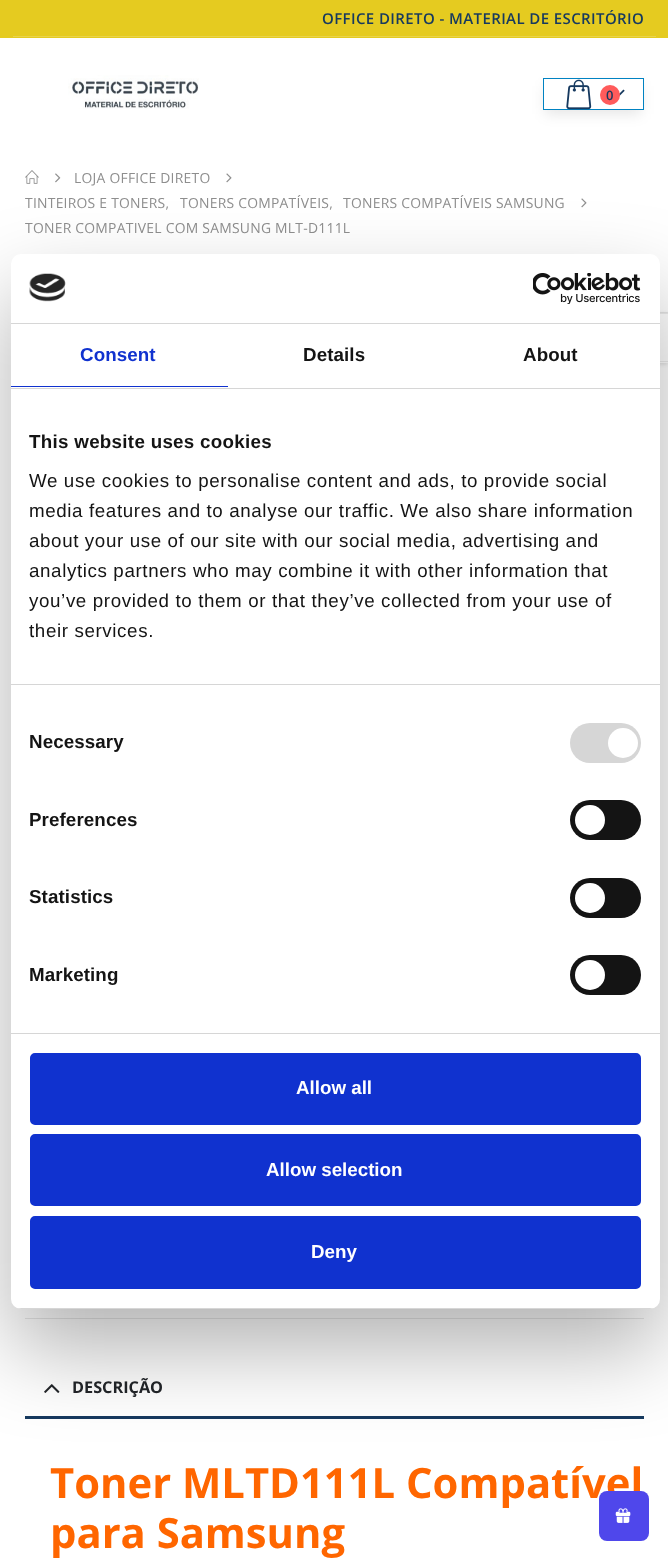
<?xml version="1.0" encoding="UTF-8"?>
<svg xmlns="http://www.w3.org/2000/svg" width="668" height="1561">
    <defs>
        <clipPath id="clip1"><path d="M 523 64 H 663 V 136 H 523 Z M 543 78 H 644 V 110 H 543 Z" clip-rule="evenodd"/></clipPath>
        <filter id="blur1" x="-50%" y="-200%" width="200%" height="500%"><feGaussianBlur stdDeviation="7"/></filter>
        <filter id="blur2" x="-50%" y="-200%" width="200%" height="500%"><feGaussianBlur stdDeviation="2"/></filter>
        <filter id="blur3" x="-50%" y="-200%" width="200%" height="500%"><feGaussianBlur stdDeviation="42.5"/></filter>
        <clipPath id="clip2"><rect x="11" y="254" width="649" height="1055" rx="10"/></clipPath>
    </defs>
    <rect width="100%" height="100%" fill="#FFFFFF"/>
    <rect x="0" y="0" width="668" height="38" fill="#E5CB20"/>
    <text x="322" y="24" font-family="Open Sans" font-size="15" font-weight="600" letter-spacing="0.4" fill="#16395F">OFFICE DIRETO - MATERIAL DE ESCRITÓRIO</text>
    <rect x="13" y="36" width="643" height="1" fill="#E9D44B"/>
    <image x="68" y="75" width="131" height="34" href="img_01.png"/>
    <g clip-path="url(#clip1)">
        <rect x="545" y="86" width="96" height="28" fill="#000000" fill-opacity="0.1" filter="url(#blur1)"/>
    </g>
    <rect x="543.5" y="78.5" width="100" height="31" fill="none" stroke="#0082C2"/>
    <image x="566" y="79" width="26" height="31" href="img_02.png"/>
    <image x="619" y="89" width="6" height="8" href="img_03.png"/>
    <circle cx="610" cy="95" r="10" fill="#FF5B5B"/>
    <text x="606" y="100" font-family="Open Sans" font-size="13" font-weight="600" letter-spacing="0.25" fill="#16395F">0</text>
    <image x="25" y="170" width="14" height="14" href="img_04.png"/>
    <image x="55" y="173" width="6" height="10" href="img_05.png"/>
    <text x="74" y="183" font-family="Open Sans" font-size="13.9" letter-spacing="0.25" fill="#8E8E8E">LOJA OFFICE DIRETO</text>
    <image x="226" y="173" width="6" height="10" href="img_06.png"/>
    <text x="25" y="208" font-family="Open Sans" font-size="13.9" letter-spacing="0.25" fill="#8E8E8E">TINTEIROS E TONERS,</text>
    <text x="180" y="208" font-family="Open Sans" font-size="13.9" letter-spacing="0.25" fill="#8E8E8E">TONERS COMPATÍVEIS,</text>
    <text x="343" y="208" font-family="Open Sans" font-size="13.9" letter-spacing="0.25" fill="#8E8E8E">TONERS COMPATÍVEIS SAMSUNG</text>
    <image x="581" y="198" width="6" height="10" href="img_06.png"/>
    <text x="25" y="233" font-family="Open Sans" font-size="13.9" letter-spacing="0.25" fill="#8E8E8E">TONER COMPATIVEL COM SAMSUNG MLT-D111L</text>
    <rect x="618" y="314" width="50" height="50" fill="#000000" fill-opacity="0.15" filter="url(#blur2)"/>
    <rect x="660" y="313" width="8" height="50" fill="#FFFFFF"/>
    <path d="M 619 312 H 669 V 314 H 620 Z" fill="#000000" fill-opacity="0.08"/>
    <path d="M 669 362 H 619 L 620 361 H 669 Z" fill="#EBEBEB"/>
    <rect x="25" y="1318" width="619" height="1" fill="#E7E7E7"/>
    <rect x="25" y="1416" width="619" height="3" fill="#16395F"/>
    <image x="44" y="1384" width="16" height="9" href="img_07.png"/>
    <text x="72" y="1393" font-family="Open Sans" font-size="16.25" font-weight="700" fill="#222529">DESCRIÇÃO</text>
    <text font-family="Open Sans" font-size="41.75" font-weight="700" fill="#FF6600">
        <tspan x="50" y="1498">Toner MLTD111L Compatível</tspan>
        <tspan x="50" y="1548">para Samsung</tspan>
    </text>
    <rect x="11" y="294" width="649" height="1055" rx="10" fill="#000000" fill-opacity="0.3" filter="url(#blur3)"/>
    <rect x="11" y="254" width="649" height="1055" rx="10" fill="#FFFFFF"/>
    <rect x="11" y="323" width="649" height="1" fill="#D6D6D6"/>
    <image x="29" y="273" width="37" height="29" href="img_08.png"/>
    <image x="533" y="273" width="108" height="31" href="img_09.png"/>
    <rect x="11" y="388" width="649" height="1" fill="#D6D6D6"/>
    <rect x="11" y="386" width="217" height="1" fill="#1032CF"/>
    <text x="80" y="361" font-family="Liberation Sans" font-size="18.75" font-weight="700" letter-spacing="0.1" fill="#1032CF">Consent</text>
    <text x="303" y="361" font-family="Liberation Sans" font-size="18.75" font-weight="700" letter-spacing="0.1" fill="#141414">Details</text>
    <text x="523" y="361" font-family="Liberation Sans" font-size="18.75" font-weight="700" letter-spacing="0.1" fill="#141414">About</text>
    <rect x="11" y="684" width="649" height="1" fill="#D6D6D6"/>
    <text x="29" y="448" font-family="Liberation Sans" font-size="18.75" font-weight="700" letter-spacing="0.3" fill="#141414">This website uses cookies</text>
    <text font-family="Liberation Sans" font-size="18.75" letter-spacing="0.62" fill="#141414">
        <tspan x="29" y="487">We use cookies to personalise content and ads, to provide social</tspan>
        <tspan x="29" y="517">media features and to analyse our traffic. We also share information</tspan>
        <tspan x="29" y="547">about your use of our site with our social media, advertising and</tspan>
        <tspan x="29" y="577">analytics partners who may combine it with other information that</tspan>
        <tspan x="29" y="607">you’ve provided to them or that they’ve collected from your use of</tspan>
        <tspan x="29" y="637">their services.</tspan>
    </text>
    <rect x="11" y="1033" width="649" height="1" fill="#D6D6D6"/>
    <text x="29" y="748" font-family="Liberation Sans" font-size="18.75" font-weight="700" letter-spacing="0.1" fill="#141414">Necessary</text>
    <rect x="570" y="723" width="71" height="40" rx="20" fill="#D6D6D6"/>
    <circle cx="623" cy="743" r="15" fill="#FFFFFF"/>
    <text x="29" y="826" font-family="Liberation Sans" font-size="18.75" font-weight="700" letter-spacing="0.1" fill="#141414">Preferences</text>
    <rect x="570" y="800" width="71" height="40" rx="20" fill="#141414"/>
    <circle cx="590" cy="820" r="15" fill="#FFFFFF"/>
    <text x="29" y="903" font-family="Liberation Sans" font-size="18.75" font-weight="700" letter-spacing="0.1" fill="#141414">Statistics</text>
    <rect x="570" y="878" width="71" height="40" rx="20" fill="#141414"/>
    <circle cx="590" cy="898" r="15" fill="#FFFFFF"/>
    <text x="29" y="981" font-family="Liberation Sans" font-size="18.75" font-weight="700" letter-spacing="0.1" fill="#141414">Marketing</text>
    <rect x="570" y="955" width="71" height="40" rx="20" fill="#141414"/>
    <circle cx="590" cy="975" r="15" fill="#FFFFFF"/>
    <g clip-path="url(#clip2)">
        <rect x="11" y="1308" width="649" height="1" fill="#D6D6D6"/>
    </g>
    <rect x="31.5" y="1054.5" width="608" height="69" rx="3.5" fill="#1032CF" stroke="#1032CF" stroke-width="3"/>
    <text x="296" y="1094" font-family="Liberation Sans" font-size="18.75" font-weight="700" fill="#FFFFFF">Allow all</text>
    <rect x="31.5" y="1135.5" width="608" height="69" rx="3.5" fill="#1032CF" stroke="#1032CF" stroke-width="3"/>
    <text x="266" y="1176" font-family="Liberation Sans" font-size="18.75" font-weight="700" fill="#FFFFFF">Allow selection</text>
    <rect x="31.5" y="1217.5" width="608" height="70" rx="3.5" fill="#1032CF" stroke="#1032CF" stroke-width="3"/>
    <text x="311" y="1258" font-family="Liberation Sans" font-size="18.75" font-weight="700" fill="#FFFFFF">Deny</text>
    <rect x="599" y="1491" width="50" height="50" rx="8" fill="#4F47EB"/>
    <image x="615" y="1508" width="16" height="15" href="img_10.png"/>
</svg>
